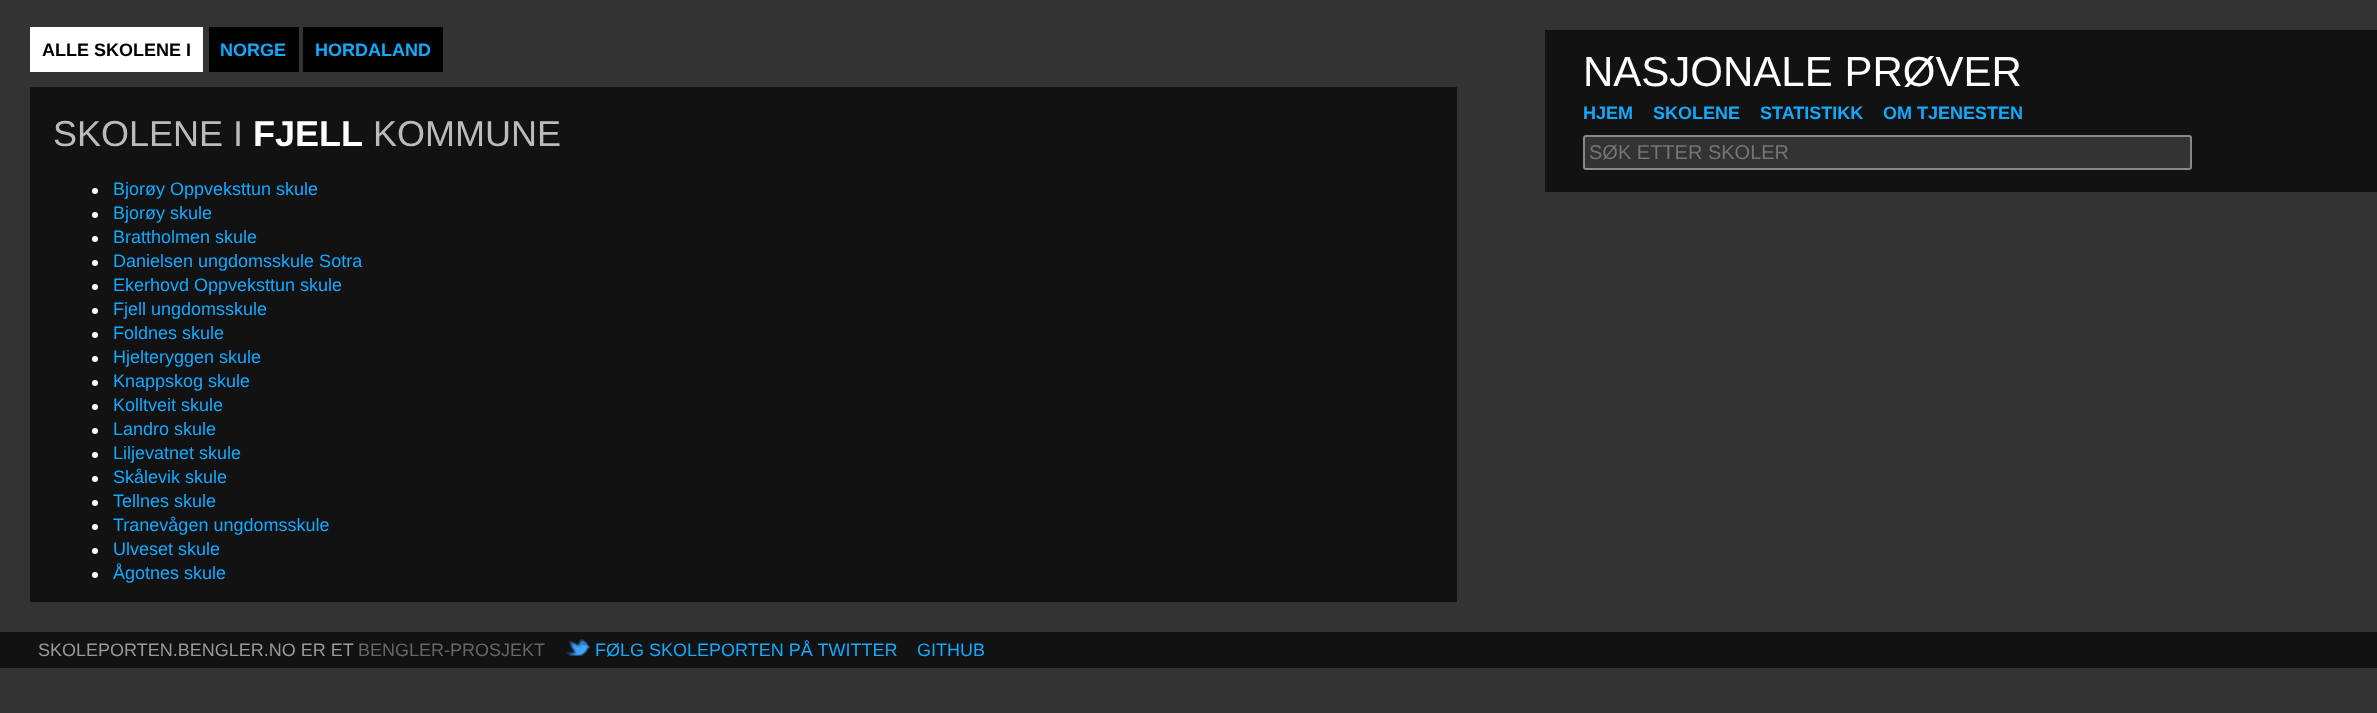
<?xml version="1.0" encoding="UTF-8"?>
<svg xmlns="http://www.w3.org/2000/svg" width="2377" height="713">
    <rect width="100%" height="100%" fill="#333333"/>
    <rect x="30" y="27" width="173" height="45" fill="#FFFFFF"/>
    <text x="42" y="56" font-family="Liberation Sans" font-size="18" font-weight="700" fill="#000000">ALLE SKOLENE I</text>
    <rect x="209" y="27" width="90" height="45" fill="#000000"/>
    <text x="220" y="56" font-family="Liberation Sans" font-size="18" font-weight="700" fill="#11AAFF">NORGE</text>
    <rect x="303" y="27" width="140" height="45" fill="#000000"/>
    <text x="315" y="56" font-family="Liberation Sans" font-size="18" font-weight="700" fill="#11AAFF">HORDALAND</text>
    <rect x="30" y="87" width="1427" height="515" fill="#121212"/>
    <text x="53" y="146" font-family="Liberation Sans" font-size="36" fill="#BBBBBB">SKOLENE I</text>
    <text x="253" y="146" font-family="Liberation Sans" font-size="36" font-weight="700" fill="#FFFFFF">FJELL</text>
    <text x="373" y="146" font-family="Liberation Sans" font-size="36" fill="#BBBBBB">KOMMUNE</text>
    <circle cx="95" cy="191" r="3" fill="#FFFFFF"/>
    <text x="113" y="195" font-family="Liberation Sans" font-size="18" fill="#11AAFF">Bjorøy Oppveksttun skule</text>
    <circle cx="95" cy="215" r="3" fill="#FFFFFF"/>
    <text x="113" y="219" font-family="Liberation Sans" font-size="18" fill="#11AAFF">Bjorøy skule</text>
    <circle cx="95" cy="239" r="3" fill="#FFFFFF"/>
    <text x="113" y="243" font-family="Liberation Sans" font-size="18" fill="#11AAFF">Brattholmen skule</text>
    <circle cx="95" cy="263" r="3" fill="#FFFFFF"/>
    <text x="113" y="267" font-family="Liberation Sans" font-size="18" fill="#11AAFF">Danielsen ungdomsskule Sotra</text>
    <circle cx="95" cy="287" r="3" fill="#FFFFFF"/>
    <text x="113" y="291" font-family="Liberation Sans" font-size="18" fill="#11AAFF">Ekerhovd Oppveksttun skule</text>
    <circle cx="95" cy="311" r="3" fill="#FFFFFF"/>
    <text x="113" y="315" font-family="Liberation Sans" font-size="18" fill="#11AAFF">Fjell ungdomsskule</text>
    <circle cx="95" cy="335" r="3" fill="#FFFFFF"/>
    <text x="113" y="339" font-family="Liberation Sans" font-size="18" fill="#11AAFF">Foldnes skule</text>
    <circle cx="95" cy="359" r="3" fill="#FFFFFF"/>
    <text x="113" y="363" font-family="Liberation Sans" font-size="18" fill="#11AAFF">Hjelteryggen skule</text>
    <circle cx="95" cy="383" r="3" fill="#FFFFFF"/>
    <text x="113" y="387" font-family="Liberation Sans" font-size="18" fill="#11AAFF">Knappskog skule</text>
    <circle cx="95" cy="407" r="3" fill="#FFFFFF"/>
    <text x="113" y="411" font-family="Liberation Sans" font-size="18" fill="#11AAFF">Kolltveit skule</text>
    <circle cx="95" cy="431" r="3" fill="#FFFFFF"/>
    <text x="113" y="435" font-family="Liberation Sans" font-size="18" fill="#11AAFF">Landro skule</text>
    <circle cx="95" cy="455" r="3" fill="#FFFFFF"/>
    <text x="113" y="459" font-family="Liberation Sans" font-size="18" fill="#11AAFF">Liljevatnet skule</text>
    <circle cx="95" cy="479" r="3" fill="#FFFFFF"/>
    <text x="113" y="483" font-family="Liberation Sans" font-size="18" fill="#11AAFF">Skålevik skule</text>
    <circle cx="95" cy="503" r="3" fill="#FFFFFF"/>
    <text x="113" y="507" font-family="Liberation Sans" font-size="18" fill="#11AAFF">Tellnes skule</text>
    <circle cx="95" cy="527" r="3" fill="#FFFFFF"/>
    <text x="113" y="531" font-family="Liberation Sans" font-size="18" fill="#11AAFF">Tranevågen ungdomsskule</text>
    <circle cx="95" cy="551" r="3" fill="#FFFFFF"/>
    <text x="113" y="555" font-family="Liberation Sans" font-size="18" fill="#11AAFF">Ulveset skule</text>
    <circle cx="95" cy="575" r="3" fill="#FFFFFF"/>
    <text x="113" y="579" font-family="Liberation Sans" font-size="18" fill="#11AAFF">Ågotnes skule</text>
    <rect x="1545" y="30" width="832" height="162" fill="#121212"/>
    <text x="1583" y="86" font-family="Liberation Sans" font-size="42" fill="#FFFFFF">NASJONALE PRØVER</text>
    <text x="1583" y="119" font-family="Liberation Sans" font-size="18" font-weight="700" fill="#11AAFF">HJEM</text>
    <text x="1653" y="119" font-family="Liberation Sans" font-size="18" font-weight="700" fill="#11AAFF">SKOLENE</text>
    <text x="1760" y="119" font-family="Liberation Sans" font-size="18" font-weight="700" fill="#11AAFF">STATISTIKK</text>
    <text x="1883" y="119" font-family="Liberation Sans" font-size="18" font-weight="700" fill="#11AAFF">OM TJENESTEN</text>
    <rect x="1584" y="136" width="607" height="33" rx="2" fill="#333333" stroke="#888888" stroke-width="2"/>
    <text x="1589" y="159" font-family="Liberation Sans" font-size="20" fill="#757575">SØK ETTER SKOLER</text>
    <rect x="0" y="632" width="2377" height="36" fill="#121212"/>
    <text x="38" y="656" font-family="Liberation Sans" font-size="18" fill="#999999">SKOLEPORTEN.BENGLER.NO ER ET</text>
    <text x="358" y="656" font-family="Liberation Sans" font-size="18" fill="#666666">BENGLER-PROSJEKT</text>
    <image x="565" y="639" width="25" height="17" href="img_01.png"/>
    <text x="595" y="656" font-family="Liberation Sans" font-size="18" fill="#11AAFF">FØLG SKOLEPORTEN PÅ TWITTER</text>
    <text x="917" y="656" font-family="Liberation Sans" font-size="18" fill="#11AAFF">GITHUB</text>
</svg>
